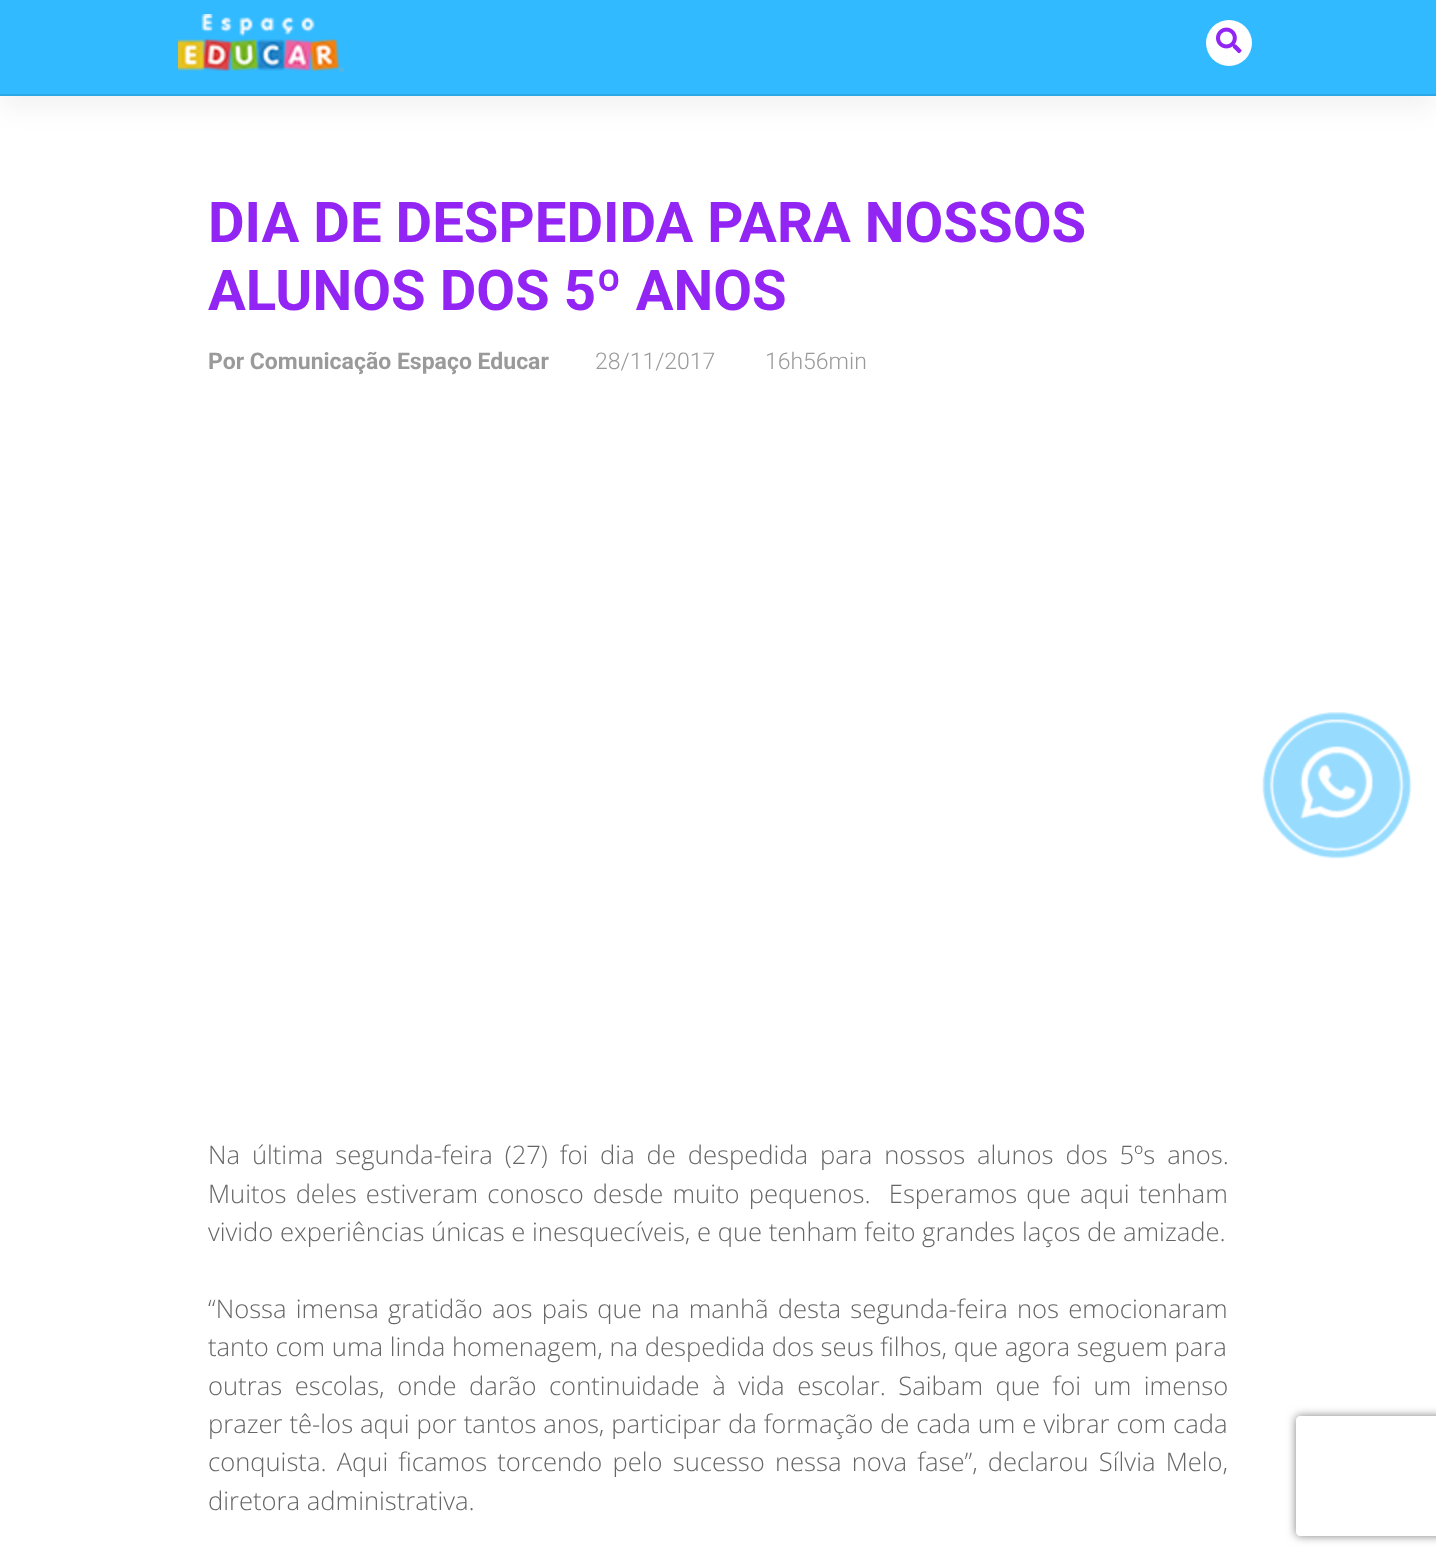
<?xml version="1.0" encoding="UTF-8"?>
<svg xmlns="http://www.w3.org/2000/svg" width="1436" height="1563">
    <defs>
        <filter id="blur1" x="-50%" y="-200%" width="200%" height="500%"><feGaussianBlur stdDeviation="13"/></filter>
        <clipPath id="clip1"><path d="M 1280 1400 H 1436 V 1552 H 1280 Z M 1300 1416 H 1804 C 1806 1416 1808 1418 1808 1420 V 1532 C 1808 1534 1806 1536 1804 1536 H 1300 C 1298 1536 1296 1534 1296 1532 V 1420 C 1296 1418 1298 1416 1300 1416 Z" clip-rule="evenodd"/></clipPath>
        <filter id="blur2" x="-50%" y="-200%" width="200%" height="500%"><feGaussianBlur stdDeviation="5"/></filter>
    </defs>
    <rect width="100%" height="100%" fill="#FFFFFF"/>
    <rect x="0" y="12" width="1436" height="96" fill="#000000" fill-opacity="0.05" filter="url(#blur1)"/>
    <rect x="0" y="0" width="1436" height="94" fill="#31BAFF"/>
    <rect x="0" y="94" width="1436" height="2" fill="#2CA7E6"/>
    <image x="178" y="14" width="166" height="59" href="img_01.png"/>
    <circle cx="1229" cy="43" r="23" fill="#FFFFFF"/>
    <image x="1216" y="27" width="26" height="27" href="img_02.png"/>
    <text font-family="Roboto" font-size="56.3" font-weight="700" fill="#9325F4">
        <tspan x="208" y="242">DIA DE DESPEDIDA PARA NOSSOS</tspan>
        <tspan x="208" y="310">ALUNOS DOS 5º ANOS</tspan>
    </text>
    <text x="208" y="369" font-family="Roboto" font-size="23" font-weight="700" fill="#9A9A9A">Por Comunicação Espaço Educar</text>
    <text x="595" y="369" word-spacing="44" font-family="Roboto" font-size="23" font-weight="300" fill="#9A9A9A">28/11/2017 16h56min</text>
    <text font-family="Open Sans" font-size="25.6" font-weight="300" fill="#666666" xml:space="preserve"><tspan x="208" y="1164" word-spacing="5.25">Na última segunda-feira (27) foi dia de despedida para nossos alunos dos 5ºs anos.</tspan><tspan x="208" y="1203" word-spacing="2.5">Muitos deles estiveram conosco desde muito pequenos.  Esperamos que aqui tenham</tspan><tspan x="208" y="1241">vivido experiências únicas e inesquecíveis, e que tenham feito grandes laços de amizade.</tspan></text>
    <text font-family="Open Sans" font-size="25.6" font-weight="300" fill="#666666">
        <tspan x="208" y="1318" word-spacing="2.5">“Nossa imensa gratidão aos pais que na manhã desta segunda-feira nos emocionaram</tspan>
        <tspan x="208" y="1356">tanto com uma linda homenagem, na despedida dos seus filhos, que agora seguem para</tspan>
        <tspan x="208" y="1395" word-spacing="5.9">outras escolas, onde darão continuidade à vida escolar. Saibam que foi um imenso</tspan>
        <tspan x="208" y="1433" word-spacing="0.25">prazer tê-los aqui por tantos anos, participar da formação de cada um e vibrar com cada</tspan>
        <tspan x="208" y="1471" word-spacing="3.5">conquista. Aqui ficamos torcendo pelo sucesso nessa nova fase”, declarou Sílvia Melo,</tspan>
        <tspan x="208" y="1510">diretora administrativa.</tspan>
    </text>
    <image x="1262" y="712" width="150" height="147" href="img_03.png"/>
    <g clip-path="url(#clip1)">
        <rect x="1296" y="1416" width="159" height="120" rx="4" fill="#808080" filter="url(#blur2)"/>
    </g>
</svg>
